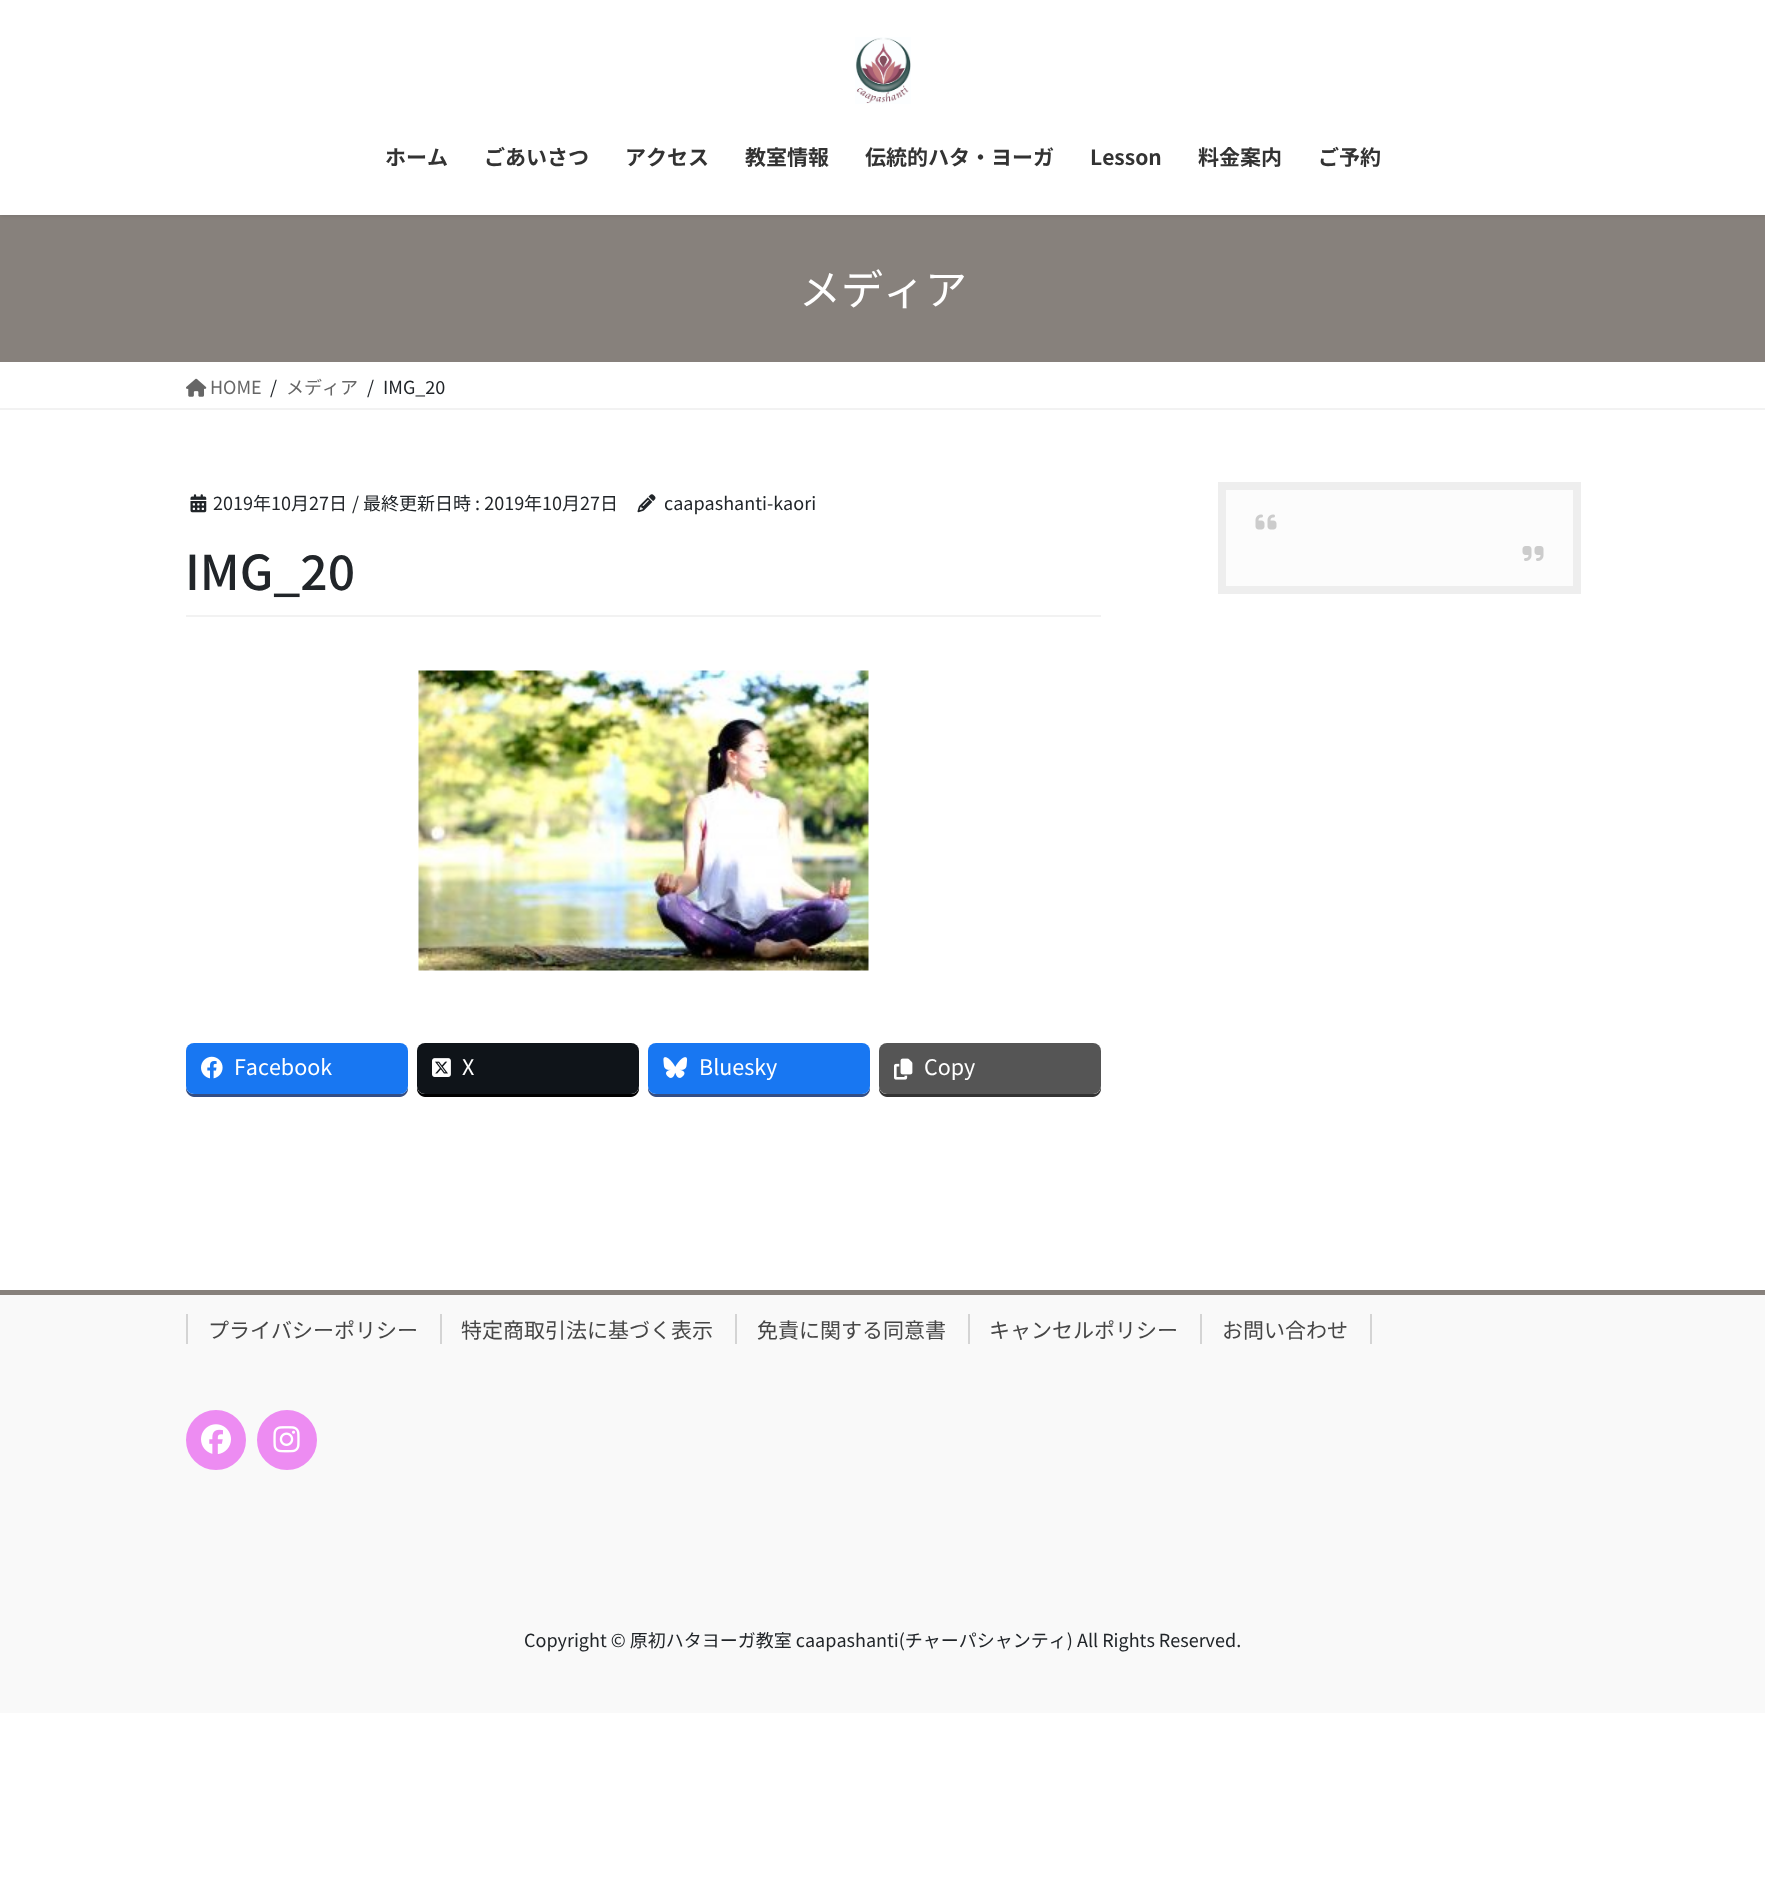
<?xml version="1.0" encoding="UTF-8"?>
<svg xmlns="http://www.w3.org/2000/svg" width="1765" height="1894">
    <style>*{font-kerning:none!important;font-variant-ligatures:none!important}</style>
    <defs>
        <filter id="blur1" x="-50%" y="-200%" width="200%" height="500%"><feGaussianBlur stdDeviation="2"/></filter>
    </defs>
    <rect width="100%" height="100%" fill="#FFFFFF"/>
    <rect x="0" y="215" width="1765" height="147" fill="#87817C"/>
    <rect x="0" y="2" width="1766" height="214" fill="#000000" fill-opacity="0.1" filter="url(#blur1)"/>
    <rect x="0" y="0" width="1765" height="215" fill="#FFFFFF"/>
    <image x="855" y="37" width="56" height="67" href="img_01.png"/>
    <text x="385" y="165" font-family="Noto Sans JP" font-size="21" font-weight="700" fill="#333333">ホーム</text>
    <text x="484" y="165" font-family="Noto Sans JP" font-size="21" font-weight="700" fill="#333333">ごあいさつ</text>
    <text x="625" y="165" font-family="Noto Sans JP" font-size="21" font-weight="700" fill="#333333">アクセス</text>
    <text x="745" y="165" font-family="Noto Sans JP" font-size="21" font-weight="700" fill="#333333">教室情報</text>
    <text x="865" y="165" font-family="Noto Sans JP" font-size="21" font-weight="700" fill="#333333">伝統的ハタ・ヨーガ</text>
    <text x="1090" y="165" font-family="Noto Sans JP" font-size="21" font-weight="700" fill="#333333">Lesson</text>
    <text x="1198" y="165" font-family="Noto Sans JP" font-size="21" font-weight="700" fill="#333333">料金案内</text>
    <text x="1318" y="165" font-family="Noto Sans JP" font-size="21" font-weight="700" fill="#333333">ご予約</text>
    <text x="799" y="305" font-family="Noto Sans JP" font-size="42" fill="#FFFFFF">メディア</text>
    <rect x="0" y="408" width="1765" height="2" fill="#F2F2F2"/>
    <image x="186" y="378" width="21" height="19" href="img_02.png"/>
    <text x="210" y="394" font-family="Noto Sans JP" font-size="18" fill="#666666">HOME</text>
    <text x="270" y="394" font-family="Noto Sans JP" font-size="18" fill="#212529">/</text>
    <text x="286" y="394" font-family="Noto Sans JP" font-size="18" fill="#666666">メディア</text>
    <text x="367" y="394" font-family="Noto Sans JP" font-size="18" fill="#212529">/</text>
    <text x="383" y="394" font-family="Noto Sans JP" font-size="18" fill="#212529">IMG_20</text>
    <rect x="186" y="615" width="915" height="2" fill="#F2F2F2"/>
    <image x="190" y="494" width="17" height="19" href="img_03.png"/>
    <text x="213" y="510" font-family="Noto Sans JP" font-size="18" fill="#212529">2019年10月27日</text>
    <text x="352" y="510" font-family="Noto Sans JP" font-size="18" fill="#212529">/ 最終更新日時 : 2019年10月27日</text>
    <image x="637" y="494" width="19" height="19" href="img_04.png"/>
    <text x="664" y="510" font-family="Noto Sans JP" font-size="18" fill="#212529">caapashanti-kaori</text>
    <text x="185" y="590" font-family="Noto Sans JP" font-size="48" font-weight="500" fill="#212529">IMG_20</text>
    <image x="418" y="670" width="451" height="301" href="img_05.png"/>
    <path d="M 186 1086 V 1089 C 186 1093 190 1097 194 1097 H 400 C 404 1097 408 1093 408 1089 V 1086 C 408 1090 405 1094 400 1094 H 194 C 189 1094 186 1090 186 1086 Z" fill="#344E84"/>
    <rect x="186" y="1043" width="222" height="51" rx="8" fill="#1877F2"/>
    <image x="201" y="1056" width="22" height="23" href="img_06.png"/>
    <text x="234" y="1075" font-family="Noto Sans JP" font-size="21.5" fill="#FFFFFF">Facebook</text>
    <path d="M 417 1086 V 1089 C 417 1093 421 1097 425 1097 H 631 C 635 1097 639 1093 639 1089 V 1086 C 639 1090 636 1094 632 1094 H 424 C 420 1094 417 1090 417 1086 Z" fill="#000000"/>
    <rect x="417" y="1043" width="222" height="51" rx="8" fill="#0F1419"/>
    <image x="432" y="1058" width="19" height="19" href="img_07.png"/>
    <text x="462" y="1075" font-family="Noto Sans JP" font-size="21.5" fill="#FFFFFF">X</text>
    <path d="M 648 1086 V 1089 C 648 1093 652 1097 656 1097 H 862 C 866 1097 870 1093 870 1089 V 1086 C 870 1090 867 1094 862 1094 H 656 C 651 1094 648 1090 648 1086 Z" fill="#344E84"/>
    <rect x="648" y="1043" width="222" height="51" rx="8" fill="#1877F2"/>
    <image x="663" y="1057" width="25" height="21" href="img_08.png"/>
    <text x="699" y="1075" font-family="Noto Sans JP" font-size="21.5" fill="#FFFFFF">Bluesky</text>
    <path d="M 879 1086 V 1089 C 879 1093 883 1097 887 1097 H 1093 C 1097 1097 1101 1093 1101 1089 V 1086 C 1101 1090 1098 1094 1094 1094 H 886 C 882 1094 879 1090 879 1086 Z" fill="#333333"/>
    <rect x="879" y="1043" width="222" height="51" rx="8" fill="#555555"/>
    <image x="894" y="1058" width="19" height="22" href="img_09.png"/>
    <text x="924" y="1075" font-family="Noto Sans JP" font-size="21.5" fill="#FFFFFF">Copy</text>
    <rect x="1222" y="486" width="355" height="104" fill="#FCFCFC" stroke="#EEEEEE" stroke-width="8"/>
    <image x="1255" y="514" width="22" height="16" href="img_10.png"/>
    <image x="1522" y="546" width="22" height="15" href="img_11.png"/>
    <rect x="0" y="1295" width="1765" height="418" fill="#F9F9F9"/>
    <rect x="0" y="1290" width="1765" height="5" fill="#87817C"/>
    <text x="208" y="1338" font-family="Noto Sans JP" font-size="21" fill="#464646">プライバシーポリシー</text>
    <rect x="186" y="1314" width="2" height="30" fill="#D4D4D4"/>
    <text x="461" y="1338" font-family="Noto Sans JP" font-size="21" fill="#464646">特定商取引法に基づく表示</text>
    <rect x="440" y="1314" width="2" height="30" fill="#D4D4D4"/>
    <text x="757" y="1338" font-family="Noto Sans JP" font-size="21" fill="#464646">免責に関する同意書</text>
    <rect x="735" y="1314" width="2" height="30" fill="#D4D4D4"/>
    <text x="989" y="1338" font-family="Noto Sans JP" font-size="21" fill="#464646">キャンセルポリシー</text>
    <rect x="968" y="1314" width="2" height="30" fill="#D4D4D4"/>
    <text x="1222" y="1338" font-family="Noto Sans JP" font-size="21" fill="#464646">お問い合わせ</text>
    <rect x="1370" y="1314" width="2" height="30" fill="#D4D4D4"/>
    <rect x="1200" y="1314" width="2" height="30" fill="#D4D4D4"/>
    <circle cx="216" cy="1440" r="29" fill="#ED8CF2" stroke="#ED8CF2" stroke-width="2"/>
    <image x="201" y="1424" width="30" height="30" href="img_12.png"/>
    <circle cx="287" cy="1440" r="29" fill="#ED8CF2" stroke="#ED8CF2" stroke-width="2"/>
    <image x="273" y="1426" width="27" height="27" href="img_13.png"/>
    <text x="524" y="1647" font-family="Noto Sans JP" font-size="18" fill="#212529">Copyright © 原初ハタヨーガ教室 caapashanti(チャーパシャンティ) All Rights Reserved.</text>
</svg>
